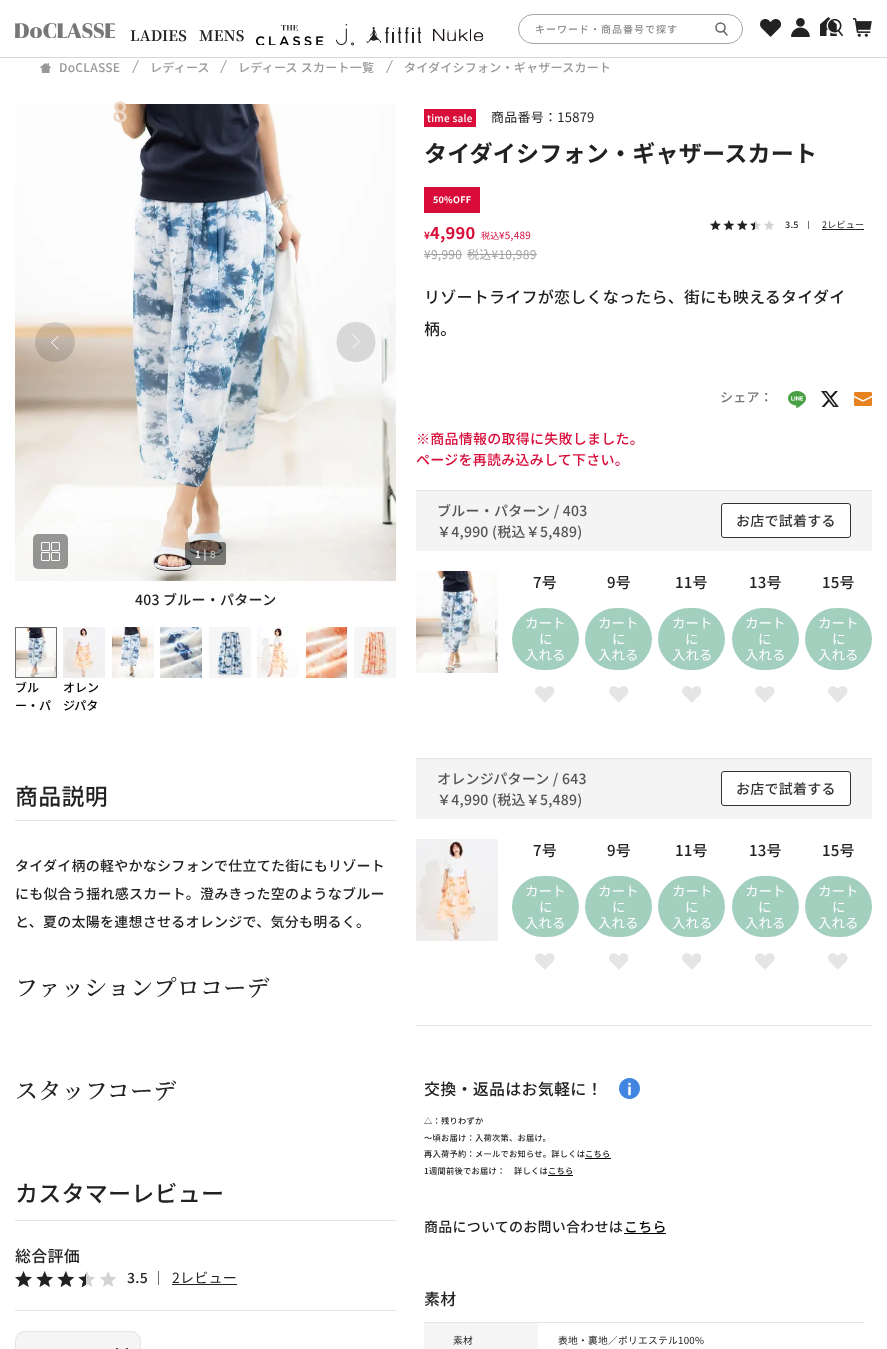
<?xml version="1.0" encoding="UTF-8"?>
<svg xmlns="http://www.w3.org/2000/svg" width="887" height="1349">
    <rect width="100%" height="100%" fill="#FFFFFF"/>
    <rect x="0" y="57" width="887" height="1" fill="#D6D6D6"/>
    <rect x="518.5" y="14.5" width="224" height="29" rx="14.5" fill="none" stroke="#A5A5A5"/>
    <text x="535" y="33" font-family="Noto Sans JP" font-size="10" font-weight="500" letter-spacing="1" fill="#8C8C8C">キーワード・商品番号で探す</text>
    <circle cx="720.5" cy="27.5" r="4.5" fill="none" stroke="#646464" stroke-width="1.5"/>
    <path d="M 723.5 31 L 727 35" fill="none" stroke="#646464" stroke-width="1.5" stroke-linecap="round" stroke-linejoin="round"/>
    <image x="760" y="19" width="21" height="18" href="img_01.png"/>
    <image x="791" y="18" width="19" height="19" href="img_02.png"/>
    <image x="820" y="17" width="23" height="19" href="img_03.png"/>
    <path d="M 838.5 47 H 820.5 L 829.5 35 Z" fill="#FFFFFF"/>
    <image x="853" y="18" width="19" height="19" href="img_04.png"/>
    <image x="15" y="23" width="100" height="15" href="img_05.png"/>
    <text x="130" y="41" font-family="Noto Serif JP" font-size="14.5" font-weight="700" letter-spacing="0.25" fill="#222222">LADIES</text>
    <text x="199" y="41" font-family="Noto Serif JP" font-size="14.5" font-weight="700" letter-spacing="0.25" fill="#222222">MENS</text>
    <image x="256" y="25" width="68" height="20" href="img_06.png"/>
    <image x="336" y="24" width="18" height="22" href="img_07.png"/>
    <image x="366" y="27" width="55" height="16" href="img_08.png"/>
    <image x="433" y="29" width="50" height="12" href="img_09.png"/>
    <image x="40" y="63" width="11" height="10" href="img_10.png"/>
    <text x="59" y="72" font-family="Noto Sans JP" font-size="12" font-weight="500" letter-spacing="0.25" fill="#989898">DoCLASSE</text>
    <path d="M 138.5 60 L 132.5 73" fill="none" stroke="#989898"/>
    <text x="150" y="72" font-family="Noto Sans JP" font-size="12" font-weight="500" letter-spacing="0.25" fill="#989898">レディース</text>
    <path d="M 226.5 60 L 220.5 73" fill="none" stroke="#989898"/>
    <text x="238" y="72" font-family="Noto Sans JP" font-size="12" font-weight="500" letter-spacing="0.25" fill="#989898">レディース スカート一覧</text>
    <path d="M 392.5 60 L 386.5 73" fill="none" stroke="#989898"/>
    <text x="404" y="72" font-family="Noto Sans JP" font-size="12" font-weight="500" letter-spacing="0.25" fill="#989898">タイダイシフォン・ギャザースカート</text>
    <image x="15" y="104" width="381" height="477" href="img_11.png"/>
    <text x="112" y="122" font-family="Noto Sans JP" font-size="28" font-weight="500" letter-spacing="0.25" fill="#ECD6C4">8</text>
    <circle cx="55" cy="342" r="20" fill="#000000" fill-opacity="0.13"/>
    <path d="M 58 336.5 L 51.5 342.5 L 58 349" fill="none" stroke="#FFFFFF" stroke-linecap="round" stroke-linejoin="round"/>
    <path d="M 356 362 C 330 362 330 322 356 322 C 382 322 382 362 356 362 Z" fill="#D8D8D8"/>
    <path d="M 353 347.5 L 359.5 341.5 L 353 335" fill="none" stroke="#FFFFFF" stroke-linecap="round" stroke-linejoin="round"/>
    <rect x="33" y="534" width="35" height="35" rx="5" fill="#000000" fill-opacity="0.4"/>
    <rect x="41.5" y="542.5" width="8" height="8" rx="0.5" fill="none" stroke="#FFFFFF"/>
    <rect x="41.5" y="552.5" width="8" height="8" rx="0.5" fill="none" stroke="#FFFFFF"/>
    <rect x="51.5" y="542.5" width="8" height="8" rx="0.5" fill="none" stroke="#FFFFFF"/>
    <rect x="51.5" y="552.5" width="8" height="8" rx="0.5" fill="none" stroke="#FFFFFF"/>
    <rect x="185" y="542" width="41" height="23" rx="3" fill="#000000" fill-opacity="0.5"/>
    <text x="195" y="558" font-family="Noto Sans JP" font-size="10" font-weight="500" letter-spacing="0.25" fill="#FFFFFF">1 |</text>
    <text x="210" y="558" font-family="Noto Sans JP" font-size="10" font-weight="500" letter-spacing="0.25" fill="#C6C2C2">8</text>
    <text x="135" y="605" font-family="Noto Sans JP" font-size="14" font-weight="500" letter-spacing="0.25" fill="#222222">403 ブルー・パターン</text>
    <image x="112" y="627" width="42" height="51" href="img_12.png"/>
    <image x="160" y="627" width="42" height="51" href="img_13.png"/>
    <image x="209" y="627" width="42" height="51" href="img_14.png"/>
    <image x="257" y="627" width="42" height="51" href="img_15.png"/>
    <image x="306" y="627" width="41" height="51" href="img_16.png"/>
    <image x="354" y="627" width="42" height="51" href="img_17.png"/>
    <rect x="15.5" y="627.5" width="41" height="50" fill="none" stroke="#707070"/>
    <image x="16" y="628" width="40" height="49" href="img_18.png"/>
    <text font-family="Noto Sans JP" font-size="12" font-weight="500" fill="#000000">
        <tspan x="15" y="692">ブル</tspan>
        <tspan x="15" y="710">ー・パ</tspan>
    </text>
    <image x="63" y="627" width="42" height="51" href="img_19.png"/>
    <text font-family="Noto Sans JP" font-size="12" font-weight="500" fill="#000000">
        <tspan x="63" y="692">オレン</tspan>
        <tspan x="63" y="710">ジパタ</tspan>
    </text>
    <rect x="15" y="820" width="381" height="1" fill="#E5E5E5"/>
    <text x="15" y="805" font-family="Noto Sans JP" font-size="23" font-weight="500" letter-spacing="0.25" fill="#222222">商品説明</text>
    <text x="15" y="871" font-family="Noto Sans JP" font-size="14" font-weight="500" letter-spacing="0.25" fill="#222222">タイダイ柄の軽やかなシフォンで仕立てた街にもリゾート</text>
    <text x="15" y="899" font-family="Noto Sans JP" font-size="14" font-weight="500" letter-spacing="0.25" fill="#222222">にも似合う揺れ感スカート。澄みきった空のようなブルー</text>
    <text x="15" y="927" font-family="Noto Sans JP" font-size="14" font-weight="500" letter-spacing="0.25" fill="#222222">と、夏の太陽を連想させるオレンジで、気分も明るく。</text>
    <text x="15" y="996" font-family="Noto Serif JP" font-size="23" font-weight="500" letter-spacing="0.25" fill="#222222">ファッションプロコーデ</text>
    <text x="15" y="1099" font-family="Noto Serif JP" font-size="23" font-weight="500" letter-spacing="0.25" fill="#222222">スタッフコーデ</text>
    <text x="15" y="1202" font-family="Noto Sans JP" font-size="23" font-weight="500" letter-spacing="0.25" fill="#222222">カスタマーレビュー</text>
    <rect x="15" y="1220" width="381" height="1" fill="#E5E5E5"/>
    <rect x="15" y="1310" width="381" height="1" fill="#E5E5E5"/>
    <text x="15" y="1262" font-family="Noto Sans JP" font-size="16" font-weight="500" letter-spacing="0.25" fill="#222222">総合評価</text>
    <image x="15" y="1271" width="102" height="16" href="img_20.png"/>
    <image x="15" y="1271" width="71" height="16" href="img_21.png"/>
    <text x="127" y="1283" font-family="Noto Sans JP" font-size="14" font-weight="500" letter-spacing="0.25" fill="#222222">3.5</text>
    <rect x="158" y="1271" width="1" height="14" fill="#707070"/>
    <text x="172" y="1283" font-family="Noto Sans JP" font-size="14" letter-spacing="0.25" fill="#222222">2レビュー</text>
    <rect x="172" y="1284" width="65" height="1" fill="#222222"/>
    <rect x="15" y="1331" width="126" height="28" rx="10" fill="#F5F5F5"/>
    <image x="116" y="1348" width="12" height="1" href="img_22.png"/>
    <rect x="15.5" y="1331.5" width="125" height="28" rx="9.5" fill="none" stroke="#E5E5E5"/>
    <rect x="424" y="109" width="52" height="18" fill="#D80D39"/>
    <text x="427" y="122" font-family="Noto Sans JP" font-size="10" font-weight="500" letter-spacing="0.25" fill="#FFFFFF">time sale</text>
    <text x="491" y="122" font-family="Noto Sans JP" font-size="13" letter-spacing="0.25" fill="#222222">商品番号：15879</text>
    <text x="424" y="162" font-family="Noto Sans JP" font-size="23" font-weight="700" letter-spacing="0.25" fill="#222222">タイダイシフォン・ギャザースカート</text>
    <rect x="424" y="187" width="56" height="26" fill="#D90C39"/>
    <text x="433" y="203" font-family="Noto Sans JP" font-size="9" font-weight="700" letter-spacing="0.25" fill="#FFFFFF">50%OFF</text>
    <text x="424" y="239" font-family="Noto Sans JP" font-size="10" font-weight="700" letter-spacing="0.25" fill="#D90C39">¥</text>
    <text x="430" y="239" font-family="Noto Sans JP" font-size="16.5" font-weight="700" letter-spacing="0.25" fill="#D90C39">4,990</text>
    <text x="481" y="239" font-family="Noto Sans JP" font-size="9" letter-spacing="0.25" fill="#D90C39">税込</text>
    <text x="499" y="239" font-family="Noto Sans JP" font-size="10" letter-spacing="0.25" fill="#D90C39">¥5,489</text>
    <text x="424" y="259" font-family="Noto Sans JP" font-size="12" letter-spacing="0.25" fill="#A0A0A0">¥9,990</text>
    <rect x="424" y="254" width="38" height="1" fill="#A0A0A0"/>
    <text x="467" y="259" font-family="Noto Sans JP" font-size="12" letter-spacing="0.25" fill="#A0A0A0">税込¥10,989</text>
    <rect x="467" y="254" width="70" height="1" fill="#A0A0A0"/>
    <image x="710" y="220" width="65" height="10" href="img_23.png"/>
    <image x="710" y="220" width="45" height="10" href="img_24.png"/>
    <text x="785" y="228" font-family="Noto Sans JP" font-size="9" font-weight="500" letter-spacing="0.25" fill="#222222">3.5</text>
    <rect x="808" y="221" width="1" height="8" fill="#707070"/>
    <text x="822" y="228" font-family="Noto Sans JP" font-size="9" letter-spacing="0.25" fill="#222222">2レビュー</text>
    <rect x="822" y="229" width="42" height="1" fill="#222222"/>
    <text x="424" y="303" font-family="Noto Sans JP" font-size="16" font-weight="500" letter-spacing="0.25" fill="#222222">リゾートライフが恋しくなったら、街にも映えるタイダイ</text>
    <text x="424" y="335" font-family="Noto Sans JP" font-size="16" font-weight="500" letter-spacing="0.25" fill="#222222">柄。</text>
    <text x="720" y="402" font-family="Noto Sans JP" font-size="13" font-weight="500" letter-spacing="0.25" fill="#777777">シェア：</text>
    <image x="788" y="391" width="18" height="17" href="img_25.png"/>
    <image x="821" y="391" width="18" height="16" href="img_26.png"/>
    <image x="854" y="392" width="18" height="14" href="img_27.png"/>
    <text font-family="Noto Sans JP" font-size="14" font-weight="500" letter-spacing="0.25" fill="#D90C39">
        <tspan x="416" y="444">※商品情報の取得に失敗しました。</tspan>
        <tspan x="416" y="465">ページを再読み込みして下さい。</tspan>
    </text>
    <rect x="416" y="490" width="456" height="1" fill="#E5E5E5"/>
    <rect x="416" y="491" width="456" height="60" fill="#F4F4F4"/>
    <text font-family="Noto Sans JP" font-size="14" font-weight="500" letter-spacing="0.25" fill="#555555">
        <tspan x="437" y="516">ブルー・パターン / 403</tspan>
        <tspan x="437" y="537">￥4,990 (税込￥5,489)</tspan>
    </text>
    <rect x="721.5" y="503.5" width="129" height="34" rx="2.5" fill="#FFFFFF" stroke="#323232"/>
    <text x="736" y="526" font-family="Noto Sans JP" font-size="14" font-weight="500" letter-spacing="0.25" fill="#323232">お店で試着する</text>
    <image x="416" y="571" width="82" height="102" href="img_28.png"/>
    <text x="533" y="588" font-family="Noto Sans JP" font-size="15" font-weight="500" letter-spacing="0.25" fill="#222222">7号</text>
    <rect x="512" y="608" width="67" height="62" rx="31" fill="#A3CFBF"/>
    <text x="525" y="628" font-family="Noto Sans JP" font-size="13.5" fill="#FFFFFF">カート</text>
    <text x="539" y="644" font-family="Noto Sans JP" font-size="13.5" fill="#FFFFFF">に</text>
    <text x="525" y="660" font-family="Noto Sans JP" font-size="13.5" fill="#FFFFFF">入れる</text>
    <image x="535" y="686" width="20" height="17" href="img_29.png"/>
    <text x="607" y="588" font-family="Noto Sans JP" font-size="15" font-weight="500" letter-spacing="0.25" fill="#222222">9号</text>
    <rect x="585" y="608" width="67" height="62" rx="31" fill="#A3CFBF"/>
    <text x="598" y="628" font-family="Noto Sans JP" font-size="13.5" fill="#FFFFFF">カート</text>
    <text x="612" y="644" font-family="Noto Sans JP" font-size="13.5" fill="#FFFFFF">に</text>
    <text x="598" y="660" font-family="Noto Sans JP" font-size="13.5" fill="#FFFFFF">入れる</text>
    <image x="609" y="686" width="19" height="17" href="img_30.png"/>
    <text x="675" y="588" font-family="Noto Sans JP" font-size="15" font-weight="500" letter-spacing="0.25" fill="#222222">11号</text>
    <rect x="658" y="608" width="67" height="62" rx="31" fill="#A3CFBF"/>
    <text x="672" y="628" font-family="Noto Sans JP" font-size="13.5" fill="#FFFFFF">カート</text>
    <text x="685" y="644" font-family="Noto Sans JP" font-size="13.5" fill="#FFFFFF">に</text>
    <text x="672" y="660" font-family="Noto Sans JP" font-size="13.5" fill="#FFFFFF">入れる</text>
    <image x="682" y="686" width="19" height="17" href="img_30.png"/>
    <text x="749" y="588" font-family="Noto Sans JP" font-size="15" font-weight="500" letter-spacing="0.25" fill="#222222">13号</text>
    <rect x="732" y="608" width="67" height="62" rx="31" fill="#A3CFBF"/>
    <text x="745" y="628" font-family="Noto Sans JP" font-size="13.5" fill="#FFFFFF">カート</text>
    <text x="758" y="644" font-family="Noto Sans JP" font-size="13.5" fill="#FFFFFF">に</text>
    <text x="745" y="660" font-family="Noto Sans JP" font-size="13.5" fill="#FFFFFF">入れる</text>
    <image x="755" y="686" width="20" height="17" href="img_29.png"/>
    <text x="822" y="588" font-family="Noto Sans JP" font-size="15" font-weight="500" letter-spacing="0.25" fill="#222222">15号</text>
    <rect x="805" y="608" width="67" height="62" rx="31" fill="#A3CFBF"/>
    <text x="818" y="628" font-family="Noto Sans JP" font-size="13.5" fill="#FFFFFF">カート</text>
    <text x="832" y="644" font-family="Noto Sans JP" font-size="13.5" fill="#FFFFFF">に</text>
    <text x="818" y="660" font-family="Noto Sans JP" font-size="13.5" fill="#FFFFFF">入れる</text>
    <image x="828" y="686" width="20" height="17" href="img_29.png"/>
    <rect x="416" y="758" width="456" height="1" fill="#E5E5E5"/>
    <rect x="416" y="759" width="456" height="60" fill="#F4F4F4"/>
    <text font-family="Noto Sans JP" font-size="14" font-weight="500" letter-spacing="0.25" fill="#555555">
        <tspan x="437" y="784">オレンジパターン / 643</tspan>
        <tspan x="437" y="805">￥4,990 (税込￥5,489)</tspan>
    </text>
    <rect x="721.5" y="771.5" width="129" height="34" rx="2.5" fill="#FFFFFF" stroke="#323232"/>
    <text x="736" y="794" font-family="Noto Sans JP" font-size="14" font-weight="500" letter-spacing="0.25" fill="#323232">お店で試着する</text>
    <image x="416" y="839" width="82" height="102" href="img_31.png"/>
    <text x="533" y="856" font-family="Noto Sans JP" font-size="15" font-weight="500" letter-spacing="0.25" fill="#222222">7号</text>
    <rect x="512" y="876" width="67" height="61" rx="30.5" fill="#A3CFBF"/>
    <text x="525" y="896" font-family="Noto Sans JP" font-size="13.5" fill="#FFFFFF">カート</text>
    <text x="539" y="912" font-family="Noto Sans JP" font-size="13.5" fill="#FFFFFF">に</text>
    <text x="525" y="928" font-family="Noto Sans JP" font-size="13.5" fill="#FFFFFF">入れる</text>
    <image x="535" y="953" width="20" height="17" href="img_29.png"/>
    <text x="607" y="856" font-family="Noto Sans JP" font-size="15" font-weight="500" letter-spacing="0.25" fill="#222222">9号</text>
    <rect x="585" y="876" width="67" height="61" rx="30.5" fill="#A3CFBF"/>
    <text x="598" y="896" font-family="Noto Sans JP" font-size="13.5" fill="#FFFFFF">カート</text>
    <text x="612" y="912" font-family="Noto Sans JP" font-size="13.5" fill="#FFFFFF">に</text>
    <text x="598" y="928" font-family="Noto Sans JP" font-size="13.5" fill="#FFFFFF">入れる</text>
    <image x="609" y="953" width="19" height="17" href="img_30.png"/>
    <text x="675" y="856" font-family="Noto Sans JP" font-size="15" font-weight="500" letter-spacing="0.25" fill="#222222">11号</text>
    <rect x="658" y="876" width="67" height="61" rx="30.5" fill="#A3CFBF"/>
    <text x="672" y="896" font-family="Noto Sans JP" font-size="13.5" fill="#FFFFFF">カート</text>
    <text x="685" y="912" font-family="Noto Sans JP" font-size="13.5" fill="#FFFFFF">に</text>
    <text x="672" y="928" font-family="Noto Sans JP" font-size="13.5" fill="#FFFFFF">入れる</text>
    <image x="682" y="953" width="19" height="17" href="img_30.png"/>
    <text x="749" y="856" font-family="Noto Sans JP" font-size="15" font-weight="500" letter-spacing="0.25" fill="#222222">13号</text>
    <rect x="732" y="876" width="67" height="61" rx="30.5" fill="#A3CFBF"/>
    <text x="745" y="896" font-family="Noto Sans JP" font-size="13.5" fill="#FFFFFF">カート</text>
    <text x="758" y="912" font-family="Noto Sans JP" font-size="13.5" fill="#FFFFFF">に</text>
    <text x="745" y="928" font-family="Noto Sans JP" font-size="13.5" fill="#FFFFFF">入れる</text>
    <image x="755" y="953" width="20" height="17" href="img_29.png"/>
    <text x="822" y="856" font-family="Noto Sans JP" font-size="15" font-weight="500" letter-spacing="0.25" fill="#222222">15号</text>
    <rect x="805" y="876" width="67" height="61" rx="30.5" fill="#A3CFBF"/>
    <text x="818" y="896" font-family="Noto Sans JP" font-size="13.5" fill="#FFFFFF">カート</text>
    <text x="832" y="912" font-family="Noto Sans JP" font-size="13.5" fill="#FFFFFF">に</text>
    <text x="818" y="928" font-family="Noto Sans JP" font-size="13.5" fill="#FFFFFF">入れる</text>
    <image x="828" y="953" width="20" height="17" href="img_29.png"/>
    <rect x="416" y="1025" width="456" height="1" fill="#E5E5E5"/>
    <text x="424" y="1095" font-family="Noto Sans JP" font-size="16" font-weight="500" letter-spacing="0.25" fill="#222222">交換・返品はお気軽に！</text>
    <image x="619" y="1078" width="21" height="21" href="img_32.png"/>
    <text x="424" y="1124" font-family="Noto Sans JP" font-size="8.25" font-weight="500" letter-spacing="0.25" fill="#222222">△：残りわずか</text>
    <text font-family="Noto Sans JP" font-size="8.25" font-weight="500" letter-spacing="0.25" fill="#222222">
        <tspan x="424" y="1141">～頃お届け：入荷次第、お届け。</tspan>
        <tspan x="424" y="1157">再入荷予約：メールでお知らせ。詳しくは</tspan>
    </text>
    <text x="585" y="1157" font-family="Noto Sans JP" font-size="8.25" font-weight="500" letter-spacing="0.25" fill="#000000">こちら</text>
    <rect x="585" y="1158" width="26" height="1" fill="#000000"/>
    <text x="424" y="1174" font-family="Noto Sans JP" font-size="8.25" font-weight="500" letter-spacing="0.25" fill="#222222">1週間前後でお届け：　詳しくは</text>
    <text x="548" y="1174" font-family="Noto Sans JP" font-size="8.25" font-weight="500" letter-spacing="0.25" fill="#000000">こちら</text>
    <rect x="548" y="1175" width="25" height="1" fill="#000000"/>
    <text x="424" y="1232" font-family="Noto Sans JP" font-size="14" font-weight="500" letter-spacing="0.25" fill="#222222">商品についてのお問い合わせは</text>
    <text x="624" y="1232" font-family="Noto Sans JP" font-size="14" font-weight="500" letter-spacing="0.25" fill="#000000">こちら</text>
    <rect x="624" y="1233" width="42" height="1" fill="#000000"/>
    <text x="424" y="1305" font-family="Noto Sans JP" font-size="16" font-weight="500" letter-spacing="0.25" fill="#222222">素材</text>
    <rect x="424" y="1322" width="440" height="1" fill="#E5E5E5"/>
    <rect x="424" y="1323" width="114" height="26" fill="#F5F5F5"/>
    <text x="453" y="1344" font-family="Noto Sans JP" font-size="9.75" letter-spacing="0.25" fill="#222222">素材</text>
    <text x="558" y="1344" font-family="Noto Sans JP" font-size="9.75" letter-spacing="0.25" fill="#222222">表地・裏地／ポリエステル100%</text>
</svg>
